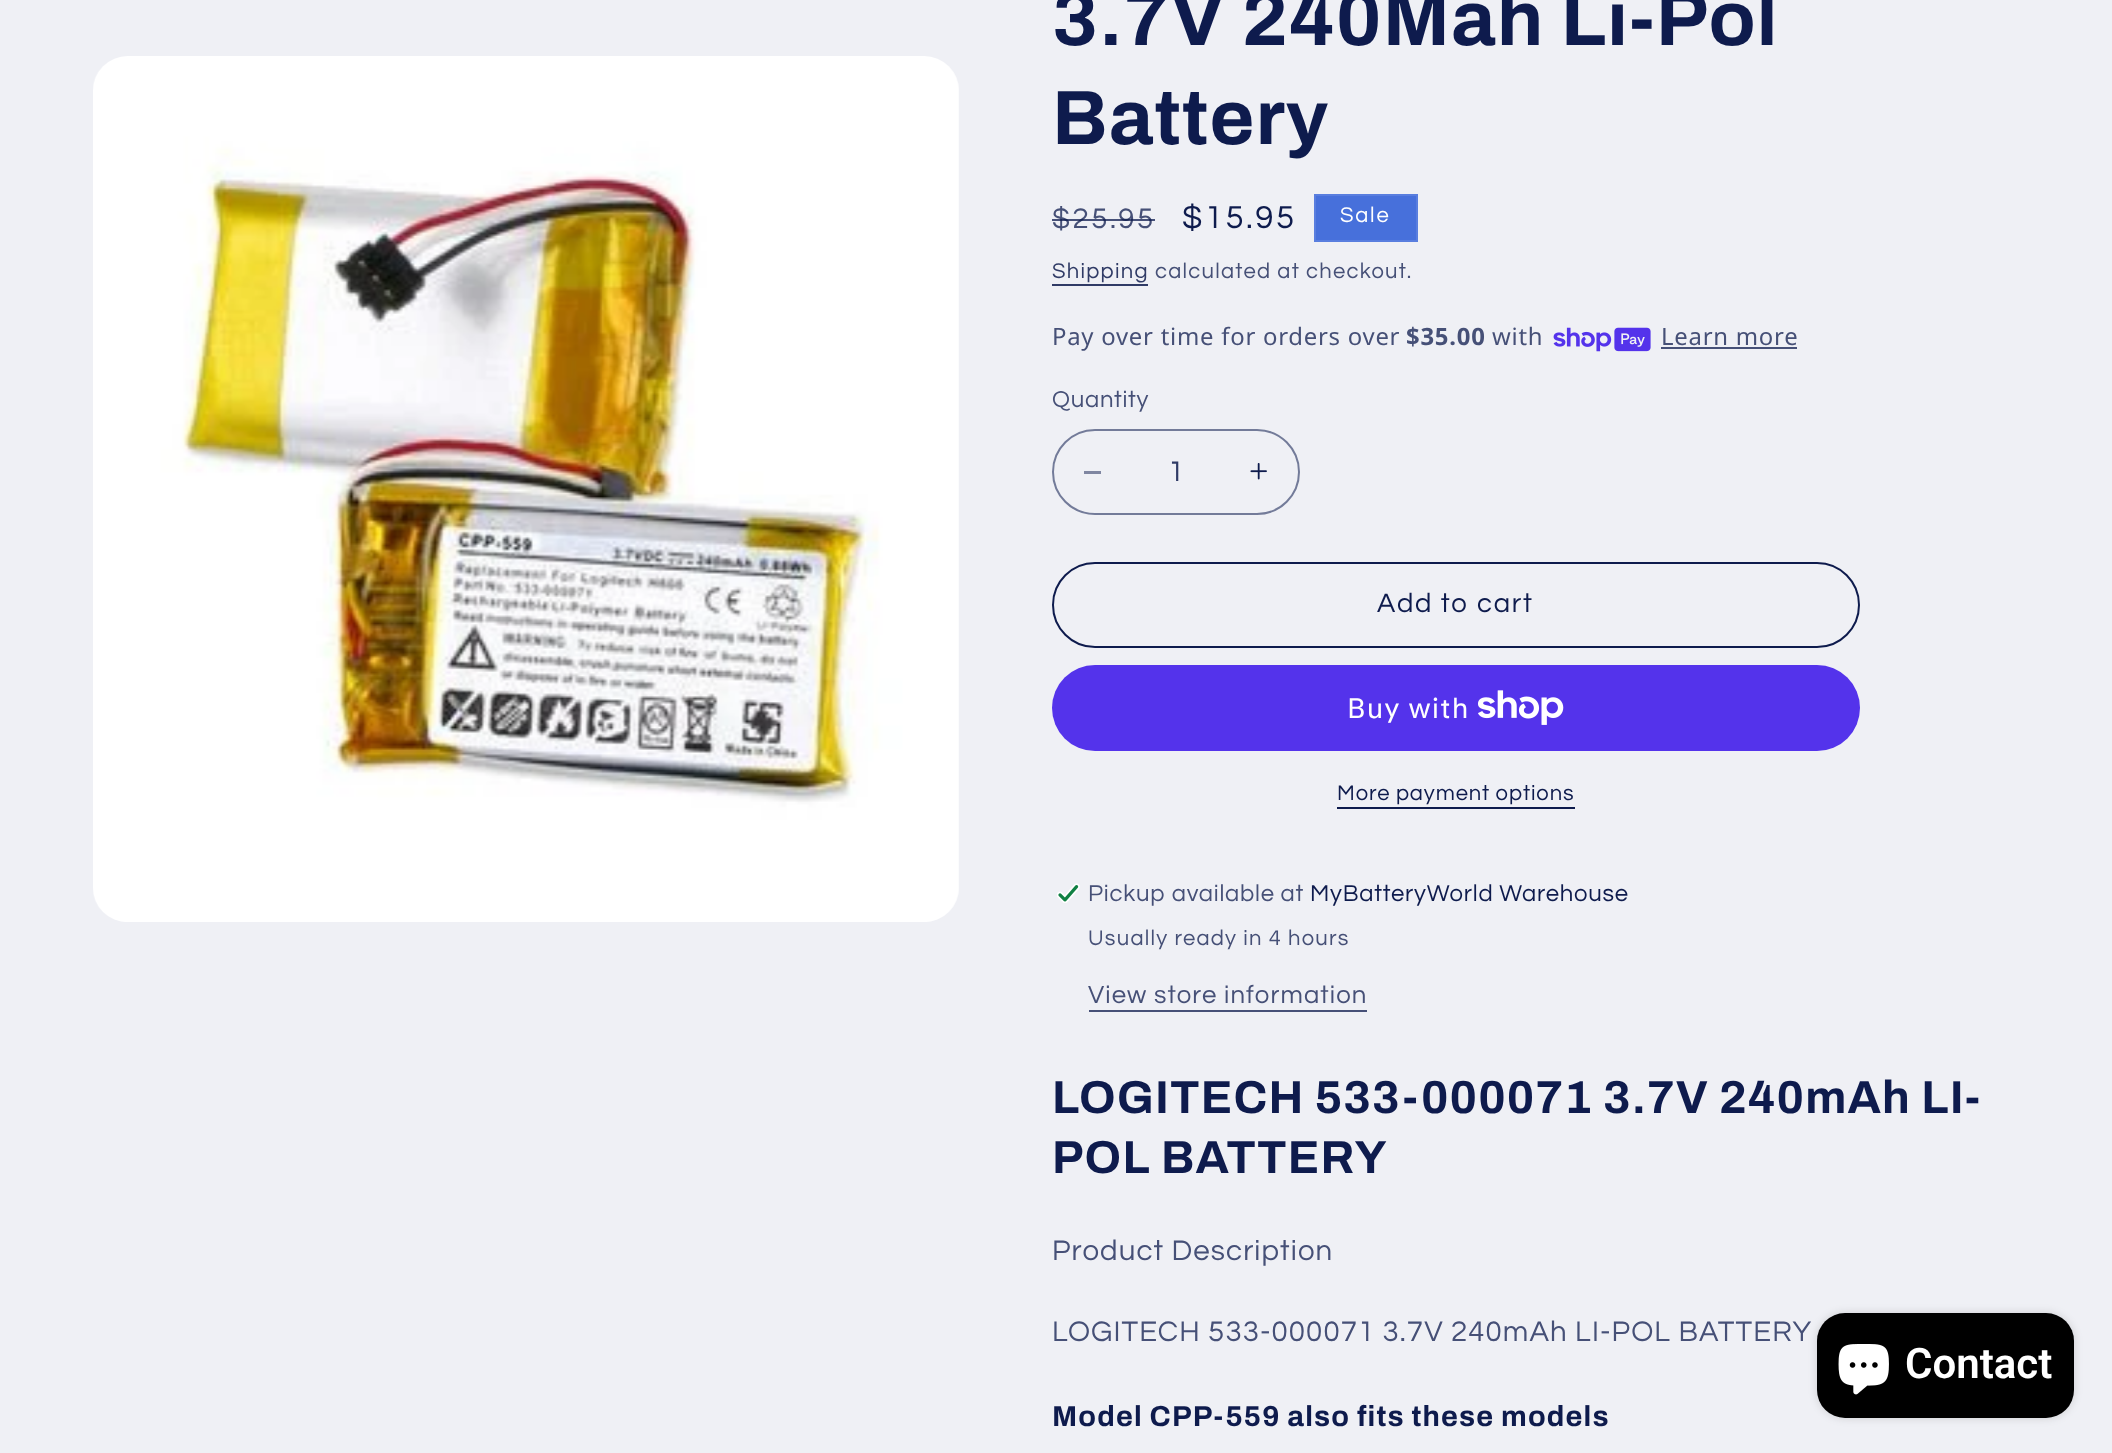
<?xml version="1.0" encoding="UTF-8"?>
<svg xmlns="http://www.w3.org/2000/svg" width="2112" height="1453">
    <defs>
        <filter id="blur1" x="-50%" y="-200%" width="200%" height="500%"><feGaussianBlur stdDeviation="4.5"/></filter>
    </defs>
    <rect width="100%" height="100%" fill="#EFF0F5"/>
    <image x="93" y="56" width="866" height="866" href="img_01.png"/>
    <text font-family="Archivo" font-size="77" font-weight="700" letter-spacing="1.15" fill="#0E1B4D">
        <tspan x="1052" y="45">3.7V 240Mah Li-Pol</tspan>
        <tspan x="1052" y="144">Battery</tspan>
    </text>
    <text x="1052" y="228" font-family="Questrial" font-size="29.4" letter-spacing="2.5" fill="#465077">$25.95</text>
    <rect x="1052" y="219" width="103" height="2" fill="#0E1B4D" fill-opacity="0.75"/>
    <text x="1182" y="228" font-family="Questrial" font-size="33" letter-spacing="2.5" fill="#0E1B4D">$15.95</text>
    <rect x="1315" y="195" width="102" height="46" fill="#4770DB" stroke="#597EDF" stroke-width="2"/>
    <text x="1340" y="222" font-family="Questrial" font-size="22" letter-spacing="1.75" fill="#FFFFFF">Sale</text>
    <text x="1052" y="278" font-family="Questrial" font-size="22" letter-spacing="1.25" fill="#303B66">Shipping</text>
    <rect x="1052" y="284" width="96" height="2" fill="#303B66"/>
    <text x="1155" y="278" font-family="Questrial" font-size="22" letter-spacing="1.25" fill="#465077">calculated at checkout.</text>
    <text x="1052" y="345" font-family="Noto Sans" font-size="23.9" letter-spacing="0.75" fill="#465077">Pay over time for orders over</text>
    <text x="1406" y="345" font-family="Noto Sans" font-size="23.9" font-weight="700" letter-spacing="0.75" fill="#465077">$35.00</text>
    <text x="1492" y="345" font-family="Noto Sans" font-size="23.9" letter-spacing="0.75" fill="#465077">with</text>
    <image x="1553" y="327" width="98" height="25" href="img_02.png"/>
    <text x="1661" y="345" font-family="Noto Sans" font-size="23.9" letter-spacing="0.75" fill="#465077">Learn more</text>
    <rect x="1661" y="347" width="136" height="2" fill="#465077"/>
    <text x="1052" y="407" font-family="Questrial" font-size="23.9" letter-spacing="0.75" fill="#465077">Quantity</text>
    <rect x="1084" y="471" width="17" height="3" fill="#7F86A1"/>
    <image x="1250" y="463" width="17" height="17" href="img_03.png"/>
    <rect x="1053" y="430" width="246" height="84" rx="42" fill="none" stroke="#737B99" stroke-width="2"/>
    <text x="1168" y="481" font-family="Questrial" font-size="29.4" fill="#303B66">1</text>
    <rect x="1053" y="563" width="806" height="84" rx="42" fill="none" stroke="#0E1B4D" stroke-width="2"/>
    <text x="1377" y="612" font-family="Questrial" font-size="27.5" letter-spacing="1.75" fill="#0E1B4D">Add to cart</text>
    <rect x="1052" y="665" width="808" height="86" rx="43" fill="#5433EB"/>
    <text x="1347" y="718" font-family="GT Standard" font-size="28" letter-spacing="1.1" fill="#FFFFFF">Buy with</text>
    <image x="1478" y="690" width="86" height="35" href="img_04.png"/>
    <text x="1337" y="800" font-family="Questrial" font-size="22" letter-spacing="0.9" fill="#0E1B4D">More payment options</text>
    <rect x="1337" y="807" width="238" height="2" fill="#0E1B4D"/>
    <image x="1057" y="883" width="23" height="20" href="img_05.png"/>
    <text x="1088" y="901" font-family="Questrial" font-size="23.9" letter-spacing="0.75" fill="#465077">Pickup available at</text>
    <text x="1310" y="901" font-family="Questrial" font-size="23.9" letter-spacing="0.75" fill="#0E1B4D">MyBatteryWorld Warehouse</text>
    <text x="1088" y="945" font-family="Questrial" font-size="22" letter-spacing="1.25" fill="#465077">Usually ready in 4 hours</text>
    <text x="1088" y="1003" font-family="Questrial" font-size="25.75" letter-spacing="1.1" fill="#465077">View store information</text>
    <rect x="1089" y="1010" width="278" height="2" fill="#465077"/>
    <text font-family="Archivo" font-size="46.2" font-weight="700" letter-spacing="1.15" fill="#0E1B4D">
        <tspan x="1052" y="1113">LOGITECH 533-000071 3.7V 240mAh LI-</tspan>
        <tspan x="1052" y="1173">POL BATTERY</tspan>
    </text>
    <text x="1052" y="1260" font-family="Questrial" font-size="29.4" letter-spacing="1.1" fill="#465077">Product Description</text>
    <text x="1052" y="1341" font-family="Questrial" font-size="29.4" letter-spacing="1.1" fill="#465077">LOGITECH 533-000071 3.7V 240mAh LI-POL BATTERY</text>
    <text x="1052" y="1426" font-family="Archivo" font-size="28.9" font-weight="700" letter-spacing="1.15" fill="#0E1B4D">Model CPP-559 also fits these models</text>
    <rect x="1817" y="1313" width="257" height="105" rx="28" fill="#000000" fill-opacity="0.15" filter="url(#blur1)"/>
    <rect x="1817" y="1313" width="257" height="105" rx="28" fill="#000000"/>
    <image x="1838" y="1344" width="51" height="51" href="img_06.png"/>
    <text x="1905" y="1378" font-family="Roboto" font-size="42" font-weight="600" fill="#FFFFFF">Contact</text>
</svg>
